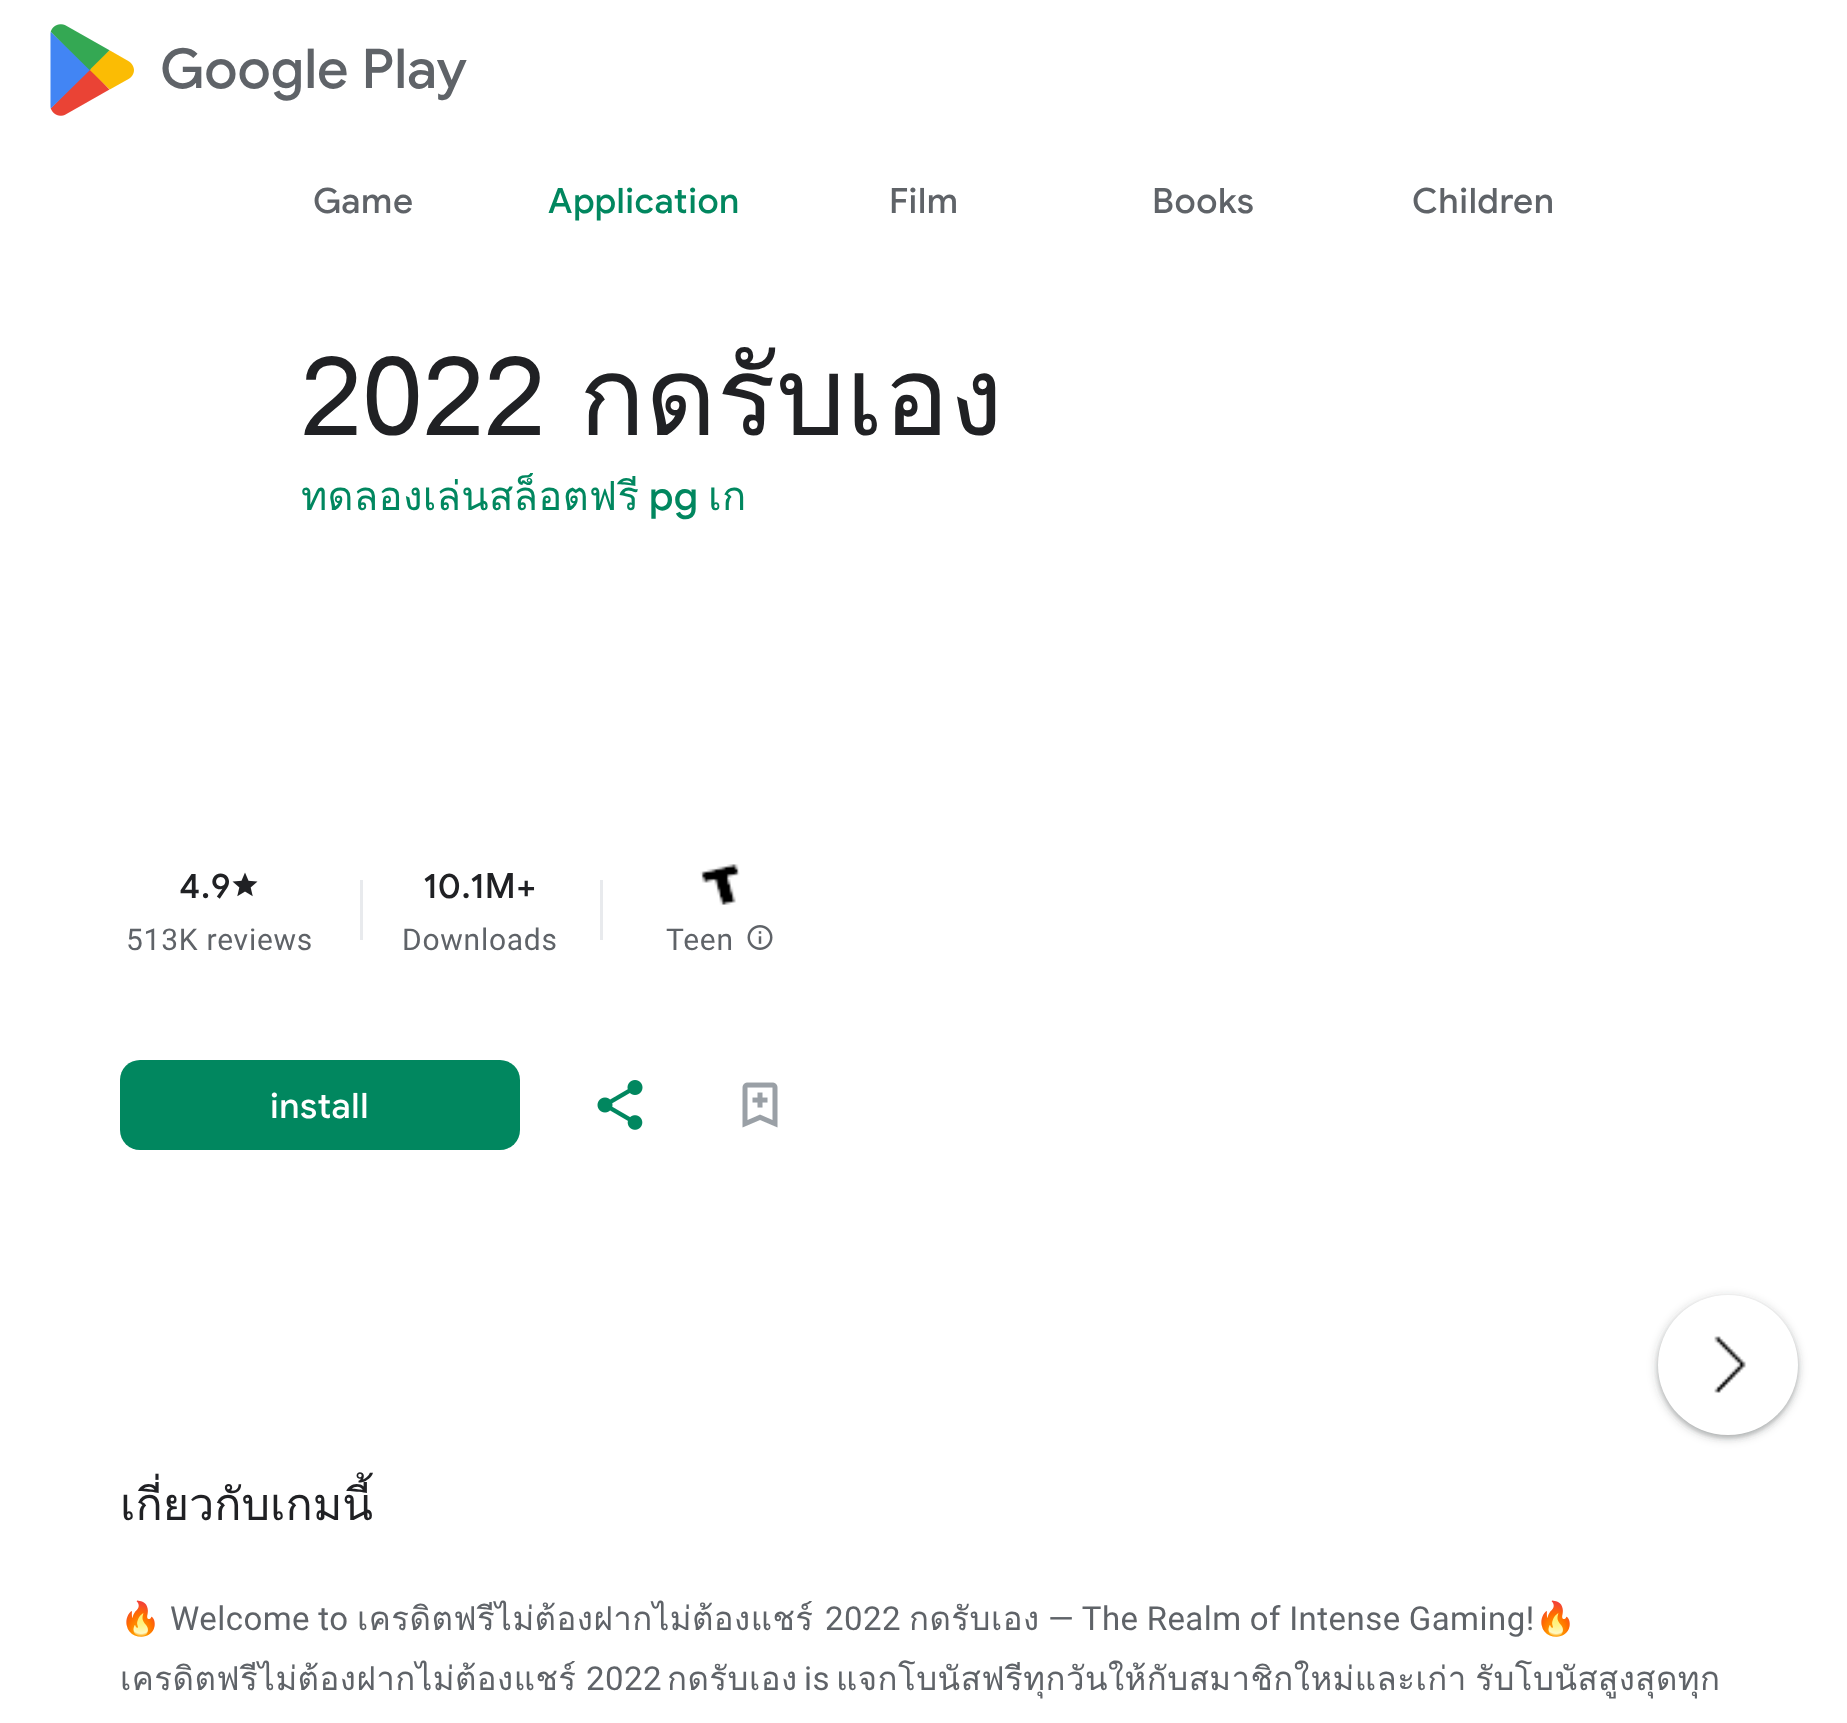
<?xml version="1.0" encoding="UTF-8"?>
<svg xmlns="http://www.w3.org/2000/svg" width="1847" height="1723">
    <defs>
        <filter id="blur1" x="-50%" y="-200%" width="200%" height="500%"><feGaussianBlur stdDeviation="4"/></filter>
        <filter id="blur2" x="-50%" y="-200%" width="200%" height="500%"><feGaussianBlur stdDeviation="2.5"/></filter>
    </defs>
    <rect width="100%" height="100%" fill="#FFFFFF"/>
    <image x="50" y="24" width="84" height="92" href="img_01.png"/>
    <text x="160" y="88" font-family="Google Sans" font-size="55" font-weight="500" fill="#5F6368">Google Play</text>
    <text x="313" y="213" font-family="Google Sans" font-size="35" font-weight="500" letter-spacing="0.6" fill="#5F6368">Game</text>
    <text x="548" y="213" font-family="Google Sans" font-size="35" font-weight="500" letter-spacing="0.6" fill="#01875F">Application</text>
    <text x="889" y="213" font-family="Google Sans" font-size="35" font-weight="500" letter-spacing="0.6" fill="#5F6368">Film</text>
    <text x="1152" y="213" font-family="Google Sans" font-size="35" font-weight="500" letter-spacing="0.6" fill="#5F6368">Books</text>
    <text x="1412" y="213" font-family="Google Sans" font-size="35" font-weight="500" letter-spacing="0.6" fill="#5F6368">Children</text>
    <text x="301" y="435" word-spacing="-4" font-family="Loma" font-size="110" fill="#202124">2022 กดรับเอง</text>
    <text x="301" y="510" font-family="Loma" font-size="40" letter-spacing="0.25" fill="#01875F">ทดลองเล่นสล็อตฟรี</text>
    <text x="649" y="510" font-family="Google Sans" font-size="40" font-weight="500" letter-spacing="0.25" fill="#01875F">pg</text>
    <text x="708" y="510" font-family="Loma" font-size="40" letter-spacing="0.25" fill="#01875F">เก</text>
    <text x="179" y="898" font-family="Google Sans" font-size="35" font-weight="500" letter-spacing="0.6" fill="#202124">4.9</text>
    <image x="232" y="872" width="26" height="25" href="img_02.png"/>
    <text x="126" y="950" font-family="Roboto" font-size="30" letter-spacing="0.75" fill="#5F6368">513K reviews</text>
    <rect x="360" y="880" width="3" height="60" fill="#E8EAED"/>
    <text x="423" y="898" font-family="Google Sans" font-size="35" font-weight="500" letter-spacing="0.6" fill="#202124">10.1M+</text>
    <text x="402" y="950" font-family="Roboto" font-size="30" letter-spacing="0.75" fill="#5F6368">Downloads</text>
    <rect x="600" y="880" width="3" height="60" fill="#E8EAED"/>
    <image x="700" y="864" width="40" height="41" href="img_03.png"/>
    <text x="666" y="950" font-family="Roboto" font-size="30" letter-spacing="0.75" fill="#5F6368">Teen</text>
    <image x="747" y="925" width="26" height="25" href="img_04.png"/>
    <rect x="120" y="1060" width="400" height="90" rx="20" fill="#01875F"/>
    <text x="270" y="1118" font-family="Google Sans" font-size="35" font-weight="500" letter-spacing="0.6" fill="#FFFFFF">install</text>
    <image x="597" y="1080" width="46" height="50" href="img_05.png"/>
    <image x="742" y="1082" width="36" height="46" href="img_06.png"/>
    <rect x="1655" y="1295" width="145" height="145" rx="72.5" fill="#3C4043" fill-opacity="0.15" filter="url(#blur1)"/>
    <rect x="1658" y="1298" width="140" height="140" rx="70" fill="#3C4043" fill-opacity="0.3" filter="url(#blur2)"/>
    <circle cx="1728" cy="1365" r="70" fill="#FFFFFF"/>
    <image x="1714" y="1336" width="32" height="57" href="img_07.png"/>
    <text x="120" y="1520" font-family="Loma" font-size="45" fill="#202124">เกี่ยวกับเกมนี้</text>
    <text x="120" y="1630" font-family="Noto Color Emoji" font-size="33" letter-spacing="0.47" fill="#5F6368">🔥</text>
    <text x="170" y="1630" word-spacing="-0.5" font-family="Roboto" font-size="33" letter-spacing="0.47" fill="#5F6368">Welcome to</text>
    <text x="357" y="1630" font-family="Loma" font-size="33" letter-spacing="0.47" fill="#5F6368">เครดิตฟรีไม่ต้องฝากไม่ต้องแชร์</text>
    <text x="825" y="1630" font-family="Roboto" font-size="33" letter-spacing="0.47" fill="#5F6368">2022</text>
    <text x="909" y="1630" font-family="Loma" font-size="33" letter-spacing="0.47" fill="#5F6368">กดรับเอง</text>
    <text x="1048" y="1630" word-spacing="-0.5" font-family="Roboto" font-size="33" letter-spacing="0.47" fill="#5F6368">— The Realm of Intense Gaming!</text>
    <text x="1535" y="1630" font-family="Noto Color Emoji" font-size="33" letter-spacing="0.47" fill="#5F6368">🔥</text>
    <text x="120" y="1690" font-family="Loma" font-size="33" letter-spacing="0.47" fill="#5F6368">เครดิตฟรีไม่ต้องฝากไม่ต้องแชร์</text>
    <text x="586" y="1690" font-family="Roboto" font-size="33" letter-spacing="0.47" fill="#5F6368">2022</text>
    <text x="667" y="1690" font-family="Loma" font-size="33" letter-spacing="0.47" fill="#5F6368">กดรับเอง</text>
    <text x="804" y="1690" font-family="Roboto" font-size="33" letter-spacing="0.47" fill="#5F6368">is</text>
    <text x="836" y="1690" word-spacing="-3" font-family="Loma" font-size="33" letter-spacing="0.47" fill="#5F6368">แจกโบนัสฟรีทุกวันให้กับสมาชิกใหม่และเก่า รับโบนัสสูงสุดทุก</text>
</svg>
